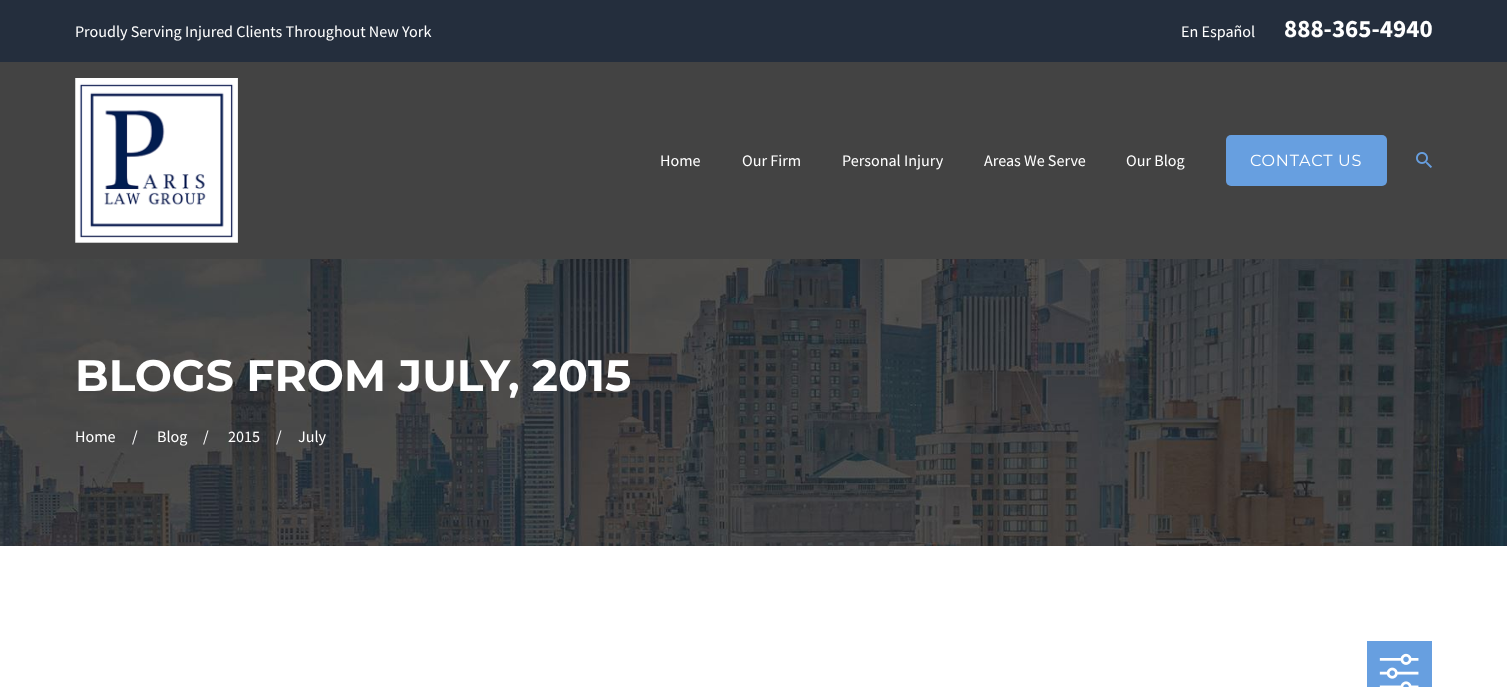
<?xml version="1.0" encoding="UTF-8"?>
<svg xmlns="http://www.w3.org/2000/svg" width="1507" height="687">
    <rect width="100%" height="100%" fill="#FFFFFF"/>
    <rect x="0" y="62" width="1507" height="197" fill="#434343"/>
    <rect x="0" y="0" width="1507" height="62" fill="#242E3D"/>
    <text x="75" y="37" font-family="Source Sans Pro" font-size="16.1" fill="#FFFFFF">Proudly Serving Injured Clients Throughout New York</text>
    <text x="1181" y="37" font-family="Source Sans Pro" font-size="16.1" fill="#FFFFFF">En Español</text>
    <text x="1284" y="37" font-family="Source Sans Pro" font-size="25" font-weight="700" fill="#FFFFFF">888-365-4940</text>
    <image x="75" y="78" width="163" height="165" href="img_01.png"/>
    <text x="660" y="166" font-family="Source Sans Pro" font-size="16.1" fill="#FFFFFF">Home</text>
    <text x="742" y="166" font-family="Source Sans Pro" font-size="16.1" fill="#FFFFFF">Our Firm</text>
    <text x="842" y="166" font-family="Source Sans Pro" font-size="16.1" fill="#FFFFFF">Personal Injury</text>
    <text x="984" y="166" font-family="Source Sans Pro" font-size="16.1" fill="#FFFFFF">Areas We Serve</text>
    <text x="1126" y="166" font-family="Source Sans Pro" font-size="16.1" fill="#FFFFFF">Our Blog</text>
    <rect x="1226" y="135" width="161" height="51" rx="5" fill="#679FE0"/>
    <text x="1250" y="166" font-family="Montserrat" font-size="16.1" letter-spacing="0.75" fill="#FFFFFF">CONTACT US</text>
    <image x="1416" y="152" width="16" height="16" href="img_02.png"/>
    <image x="0" y="259" width="1507" height="287" href="img_03.png"/>
    <text x="75" y="391" font-family="Montserrat" font-size="44" font-weight="700" fill="#FFFFFF">BLOGS FROM JULY, 2015</text>
    <text x="75" y="442" font-family="Source Sans Pro" font-size="16.1" fill="#FFFFFF">Home</text>
    <text x="132" y="442" font-family="Source Sans Pro" font-size="16.1" fill="#FFFFFF">/</text>
    <text x="157" y="442" font-family="Source Sans Pro" font-size="16.1" fill="#FFFFFF">Blog</text>
    <text x="203" y="442" font-family="Source Sans Pro" font-size="16.1" fill="#FFFFFF">/</text>
    <text x="228" y="442" font-family="Source Sans Pro" font-size="16.1" fill="#FFFFFF">2015</text>
    <text x="276" y="442" font-family="Source Sans Pro" font-size="16.1" fill="#FFFFFF">/</text>
    <text x="298" y="442" font-family="Source Sans Pro" font-size="16.1" fill="#FFFFFF">July</text>
    <rect x="1367" y="641" width="65" height="46" fill="#679FE0"/>
    <image x="1379" y="653" width="40" height="34" href="img_04.png"/>
</svg>
